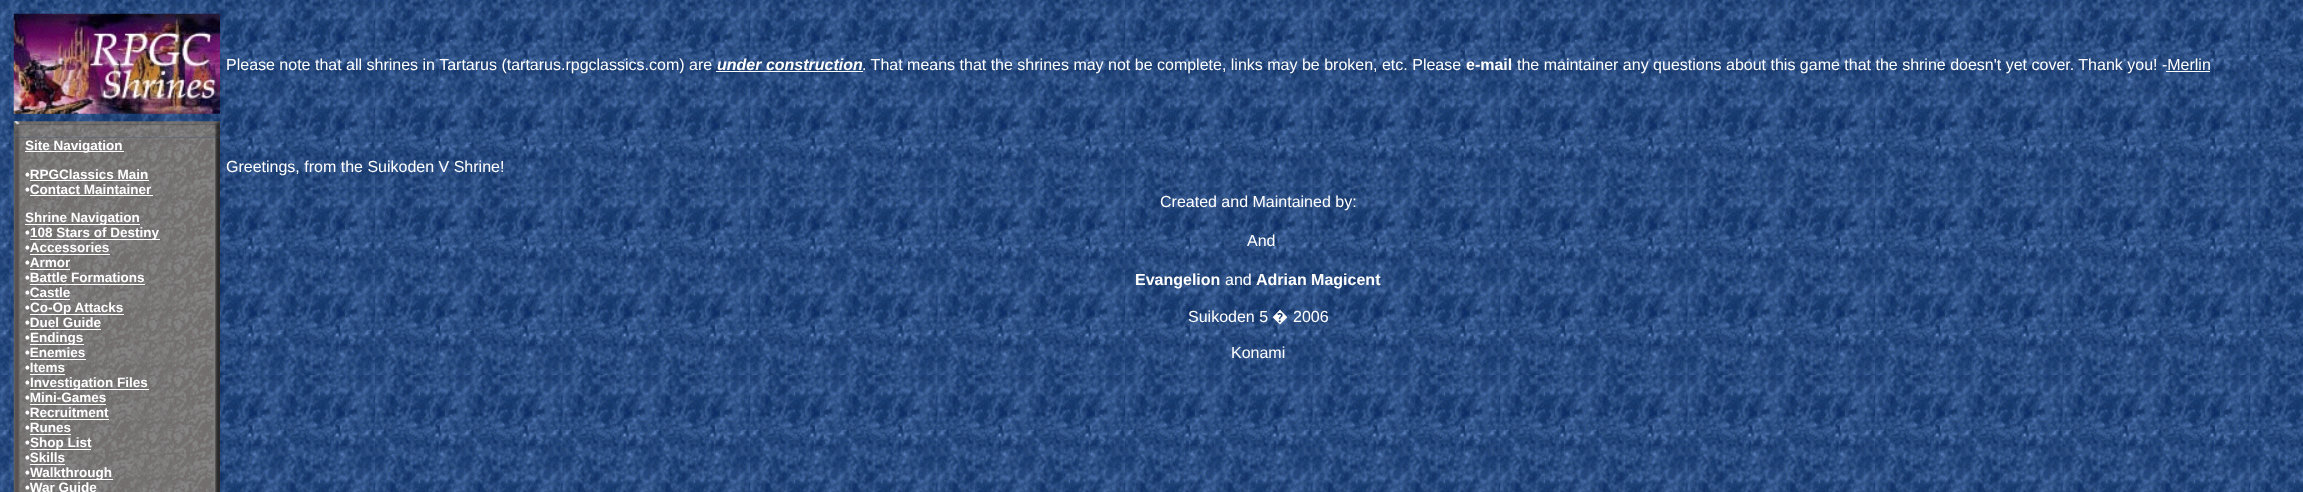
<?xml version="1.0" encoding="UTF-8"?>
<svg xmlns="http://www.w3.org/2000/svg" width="2303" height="492">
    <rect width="100%" height="100%" fill="#FFFFFF"/>
    <image x="0" y="0" width="2303" height="492" href="img_01.png"/>
    <image x="13" y="13" width="207" height="101" href="img_02.png"/>
    <text x="226" y="70" font-family="Liberation Sans" font-size="16" fill="#FFFFFF">Please note that all shrines in Tartarus (tartarus.rpgclassics.com) are</text>
    <text x="717" y="70" font-family="Liberation Sans" font-size="16" font-weight="700" font-style="italic" fill="#FFFFFF">under construction</text>
    <rect x="716" y="71" width="147" height="1" fill="#FFFFFF"/>
    <text x="862" y="70" font-family="Liberation Sans" font-size="16" fill="#FFFFFF">. That means that the shrines may not be complete, links may be broken, etc. Please</text>
    <text x="1466" y="70" font-family="Liberation Sans" font-size="16" font-weight="700" fill="#FFFFFF">e-mail</text>
    <text x="1517" y="70" font-family="Liberation Sans" font-size="16" fill="#FFFFFF">the maintainer any questions about this game that the shrine doesn't yet cover. Thank you! -Merlin</text>
    <rect x="2166" y="71" width="44" height="1" fill="#FFFFFF"/>
    <image x="13" y="137" width="207" height="355" href="img_04.png"/>
    <image x="13" y="121" width="207" height="17" href="img_03.png"/>
    <rect x="25" y="151" width="99" height="1" fill="#FFFFFF"/>
    <text x="25" y="150" font-family="Liberation Sans" font-size="13.5" font-weight="700" fill="#FFFFFF">Site Navigation</text>
    <text x="25" y="179" font-family="Liberation Sans" font-size="13.5" font-weight="700" fill="#FFFFFF">•RPGClassics Main</text>
    <rect x="30" y="180" width="119" height="1" fill="#FFFFFF"/>
    <text x="25" y="194" font-family="Liberation Sans" font-size="13.5" font-weight="700" fill="#FFFFFF">•Contact Maintainer</text>
    <rect x="30" y="195" width="123" height="1" fill="#FFFFFF"/>
    <rect x="25" y="224" width="115" height="1" fill="#FFFFFF"/>
    <text font-family="Liberation Sans" font-size="13.5" font-weight="700" fill="#FFFFFF">
        <tspan x="25" y="222">Shrine Navigation</tspan>
        <tspan x="25" y="237">•</tspan>
    </text>
    <rect x="30" y="239" width="130" height="1" fill="#FFFFFF"/>
    <text x="30" y="237" font-family="Liberation Sans" font-size="13.5" font-weight="700" fill="#FFFFFF">108 Stars of Destiny</text>
    <text x="25" y="252" font-family="Liberation Sans" font-size="13.5" font-weight="700" fill="#FFFFFF">•Accessories</text>
    <rect x="30" y="254" width="80" height="1" fill="#FFFFFF"/>
    <text x="25" y="267" font-family="Liberation Sans" font-size="13.5" font-weight="700" fill="#FFFFFF">•Armor</text>
    <rect x="30" y="269" width="40" height="1" fill="#FFFFFF"/>
    <text x="25" y="282" font-family="Liberation Sans" font-size="13.5" font-weight="700" fill="#FFFFFF">•Battle Formations</text>
    <rect x="30" y="284" width="115" height="1" fill="#FFFFFF"/>
    <text x="25" y="297" font-family="Liberation Sans" font-size="13.5" font-weight="700" fill="#FFFFFF">•Castle</text>
    <rect x="30" y="299" width="40" height="1" fill="#FFFFFF"/>
    <text x="25" y="312" font-family="Liberation Sans" font-size="13.5" font-weight="700" fill="#FFFFFF">•</text>
    <rect x="30" y="314" width="94" height="1" fill="#FFFFFF"/>
    <text x="30" y="312" font-family="Liberation Sans" font-size="13.5" font-weight="700" fill="#FFFFFF">Co-Op Attacks</text>
    <text x="25" y="327" font-family="Liberation Sans" font-size="13.5" font-weight="700" fill="#FFFFFF">•Duel Guide</text>
    <rect x="30" y="329" width="71" height="1" fill="#FFFFFF"/>
    <text x="25" y="342" font-family="Liberation Sans" font-size="13.5" font-weight="700" fill="#FFFFFF">•</text>
    <rect x="30" y="344" width="54" height="1" fill="#FFFFFF"/>
    <text x="30" y="342" font-family="Liberation Sans" font-size="13.5" font-weight="700" fill="#FFFFFF">Endings</text>
    <text x="25" y="357" font-family="Liberation Sans" font-size="13.5" font-weight="700" fill="#FFFFFF">•Enemies</text>
    <rect x="30" y="359" width="56" height="1" fill="#FFFFFF"/>
    <text x="25" y="372" font-family="Liberation Sans" font-size="13.5" font-weight="700" fill="#FFFFFF">•Items</text>
    <rect x="30" y="374" width="35" height="1" fill="#FFFFFF"/>
    <text x="25" y="387" font-family="Liberation Sans" font-size="13.5" font-weight="700" fill="#FFFFFF">•</text>
    <rect x="30" y="389" width="119" height="1" fill="#FFFFFF"/>
    <text x="30" y="387" font-family="Liberation Sans" font-size="13.5" font-weight="700" fill="#FFFFFF">Investigation Files</text>
    <text x="25" y="402" font-family="Liberation Sans" font-size="13.5" font-weight="700" fill="#FFFFFF">•Mini-Games</text>
    <rect x="30" y="404" width="76" height="1" fill="#FFFFFF"/>
    <text x="25" y="417" font-family="Liberation Sans" font-size="13.5" font-weight="700" fill="#FFFFFF">•Recruitment</text>
    <rect x="30" y="419" width="79" height="1" fill="#FFFFFF"/>
    <text x="25" y="432" font-family="Liberation Sans" font-size="13.5" font-weight="700" fill="#FFFFFF">•Runes</text>
    <rect x="30" y="434" width="41" height="1" fill="#FFFFFF"/>
    <text x="25" y="447" font-family="Liberation Sans" font-size="13.5" font-weight="700" fill="#FFFFFF">•</text>
    <rect x="30" y="449" width="61" height="1" fill="#FFFFFF"/>
    <text x="30" y="447" font-family="Liberation Sans" font-size="13.5" font-weight="700" fill="#FFFFFF">Shop List</text>
    <text x="25" y="462" font-family="Liberation Sans" font-size="13.5" font-weight="700" fill="#FFFFFF">•Skills</text>
    <rect x="30" y="464" width="35" height="1" fill="#FFFFFF"/>
    <text x="25" y="477" font-family="Liberation Sans" font-size="13.5" font-weight="700" fill="#FFFFFF">•</text>
    <rect x="30" y="479" width="83" height="1" fill="#FFFFFF"/>
    <text x="30" y="477" font-family="Liberation Sans" font-size="13.5" font-weight="700" fill="#FFFFFF">Walkthrough</text>
    <text x="25" y="492" font-family="Liberation Sans" font-size="13.5" font-weight="700" fill="#FFFFFF">•War Guide</text>
    <text x="226" y="172" font-family="Liberation Sans" font-size="16" fill="#FFFFFF">Greetings, from the Suikoden V Shrine!</text>
    <text x="1160" y="207" font-family="Liberation Sans" font-size="16" fill="#FFFFFF">Created and Maintained by:</text>
    <text x="1247" y="246" font-family="Liberation Sans" font-size="16" fill="#FFFFFF">And</text>
    <text x="1135" y="285" font-family="Liberation Sans" font-size="16" font-weight="700" fill="#FFFFFF">Evangelion</text>
    <text x="1225" y="285" font-family="Liberation Sans" font-size="16" fill="#FFFFFF">and</text>
    <text x="1256" y="285" font-family="Liberation Sans" font-size="16" font-weight="700" fill="#FFFFFF">Adrian Magicent</text>
    <text x="1188" y="322" font-family="Liberation Sans" font-size="16" fill="#FFFFFF">Suikoden 5</text>
    <text x="1272" y="322" font-family="Noto Sans" font-size="16" fill="#FFFFFF">�</text>
    <text x="1293" y="322" font-family="Liberation Sans" font-size="16" fill="#FFFFFF">2006</text>
    <text x="1231" y="358" font-family="Liberation Sans" font-size="16" fill="#FFFFFF">Konami</text>
</svg>
